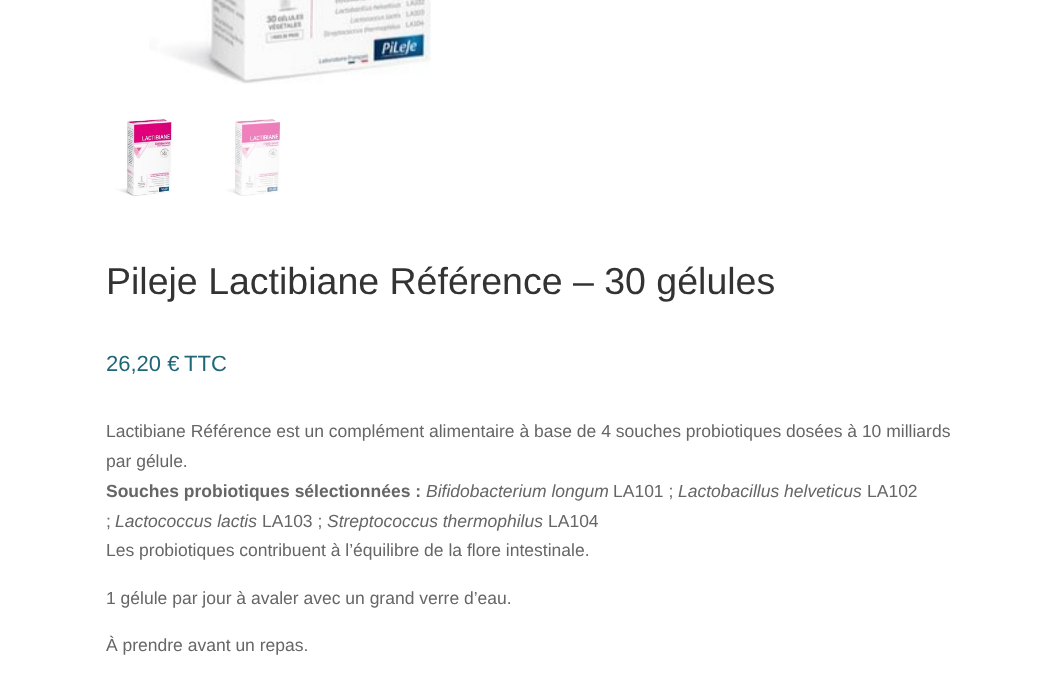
<?xml version="1.0" encoding="UTF-8"?>
<svg xmlns="http://www.w3.org/2000/svg" width="1056" height="684">
    <rect width="100%" height="100%" fill="#FFFFFF"/>
    <image x="149" y="0" width="282" height="84" href="img_01.png"/>
    <image x="115" y="118" width="59" height="79" href="img_02.png"/>
    <image x="226" y="119" width="55" height="77" href="img_03.png"/>
    <text x="106" y="294" font-family="Liberation Sans" font-size="37.5" fill="#333333">Pileje Lactibiane Référence – 30 gélules</text>
    <text x="106" y="371" font-family="Liberation Sans" font-size="22" fill="#1F6775">26,20 €</text>
    <text x="184" y="371" font-family="Liberation Sans" font-size="22" fill="#1F6775">TTC</text>
    <text font-family="Liberation Sans" font-size="17.5" fill="#666666">
        <tspan x="106" y="437">Lactibiane Référence est un complément alimentaire à base de 4 souches probiotiques dosées à 10 milliards</tspan>
        <tspan x="106" y="467">par gélule.</tspan>
    </text>
    <text x="106" y="497" font-family="Liberation Sans" font-size="17.5" font-weight="700" fill="#666666">Souches probiotiques sélectionnées :</text>
    <text x="426" y="497" font-family="Liberation Sans" font-size="17.5" font-style="italic" fill="#666666">Bifidobacterium longum</text>
    <text x="613" y="497" font-family="Liberation Sans" font-size="17.5" fill="#666666">LA101 ;</text>
    <text x="678" y="497" font-family="Liberation Sans" font-size="17.5" font-style="italic" fill="#666666">Lactobacillus helveticus</text>
    <text x="867" y="497" font-family="Liberation Sans" font-size="17.5" fill="#666666">LA102</text>
    <text x="106" y="527" font-family="Liberation Sans" font-size="17.5" fill="#666666">;</text>
    <text x="115" y="527" font-family="Liberation Sans" font-size="17.5" font-style="italic" fill="#666666">Lactococcus lactis</text>
    <text x="262" y="527" font-family="Liberation Sans" font-size="17.5" fill="#666666">LA103 ;</text>
    <text x="327" y="527" font-family="Liberation Sans" font-size="17.5" font-style="italic" fill="#666666">Streptococcus thermophilus</text>
    <text x="548" y="527" font-family="Liberation Sans" font-size="17.5" fill="#666666">LA104</text>
    <text x="106" y="556" font-family="Liberation Sans" font-size="17.5" fill="#666666">Les probiotiques contribuent à l’équilibre de la flore intestinale.</text>
    <text x="106" y="604" font-family="Liberation Sans" font-size="17.5" fill="#666666">1 gélule par jour à avaler avec un grand verre d’eau.</text>
    <text x="106" y="651" font-family="Liberation Sans" font-size="17.5" fill="#666666">À prendre avant un repas.</text>
</svg>
